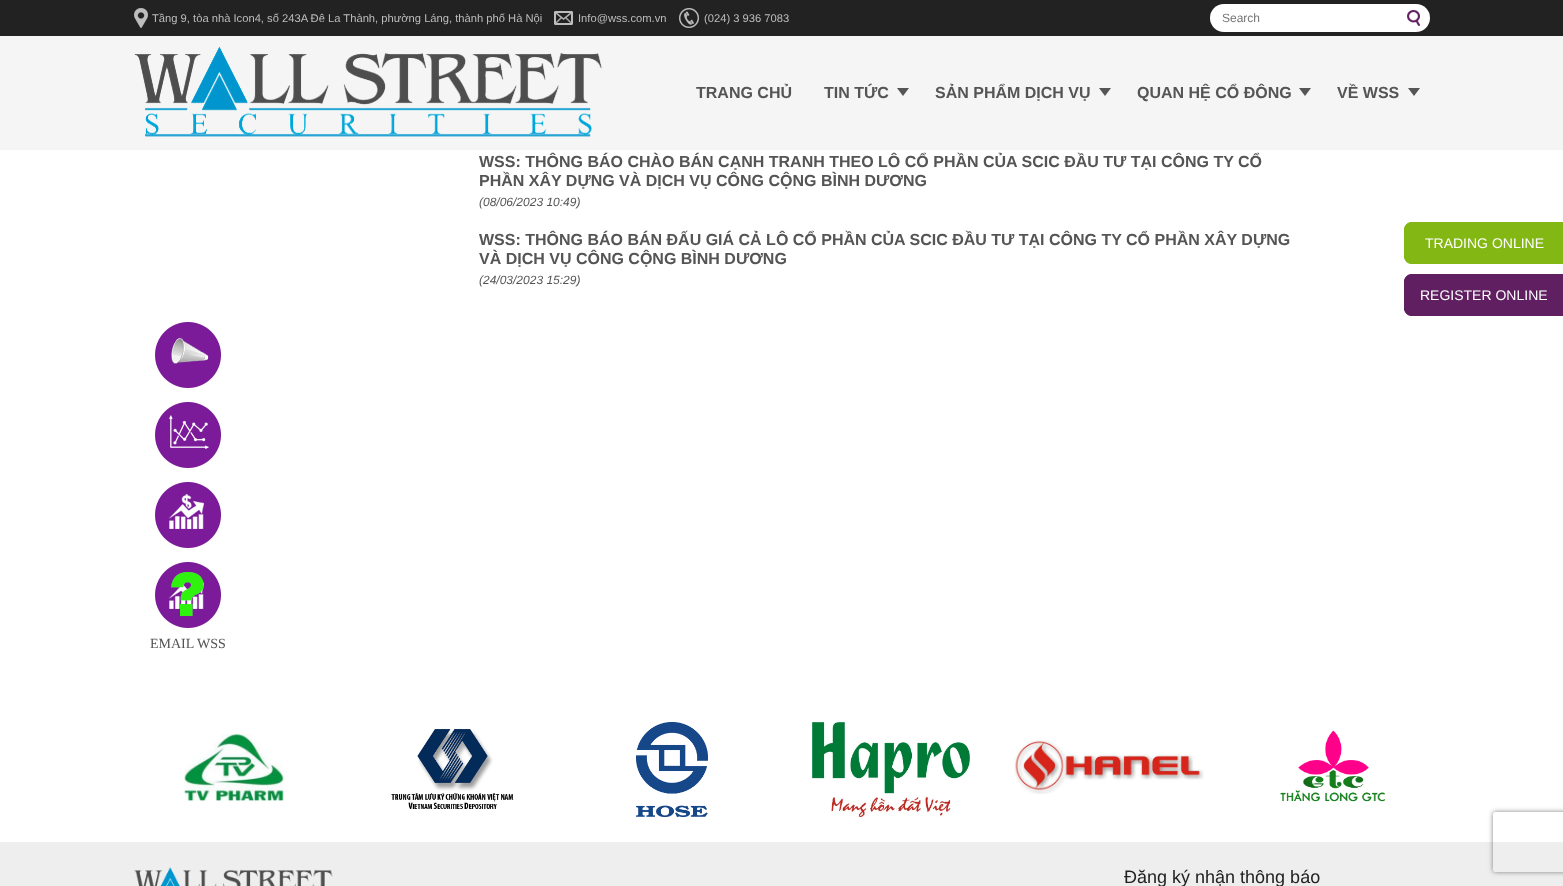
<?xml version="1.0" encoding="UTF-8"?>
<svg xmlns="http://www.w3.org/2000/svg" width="1563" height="886">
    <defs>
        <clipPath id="clip1"><path d="M 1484 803 H 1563 V 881 H 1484 Z M 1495 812 H 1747 C 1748 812 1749 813 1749 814 V 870 C 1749 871 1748 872 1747 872 H 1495 C 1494 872 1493 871 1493 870 V 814 C 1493 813 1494 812 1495 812 Z" clip-rule="evenodd"/></clipPath>
        <filter id="blur1" x="-50%" y="-200%" width="200%" height="500%"><feGaussianBlur stdDeviation="2.5"/></filter>
    </defs>
    <rect width="100%" height="100%" fill="#FFFFFF"/>
    <rect x="0" y="0" width="1563" height="36" fill="#222222"/>
    <image x="134" y="8" width="14" height="20" href="img_01.png"/>
    <text x="152" y="22" font-family="Liberation Sans" font-size="11.2" fill="#BDBDBD">Tầng 9, tòa nhà Icon4, số 243A Đê La Thành, phường Láng, thành phố Hà Nội</text>
    <image x="554" y="11" width="19" height="14" href="img_02.png"/>
    <text x="578" y="22" font-family="Liberation Sans" font-size="11.2" fill="#BDBDBD">Info@wss.com.vn</text>
    <image x="679" y="8" width="20" height="20" href="img_03.png"/>
    <text x="704" y="22" font-family="Liberation Sans" font-size="11.2" fill="#BDBDBD">(024) 3 936 7083</text>
    <rect x="1210" y="4" width="220" height="28" rx="14" fill="#FFFFFF"/>
    <text x="1222" y="22" font-family="Liberation Sans" font-size="12" fill="#757575">Search</text>
    <image x="1407" y="10" width="13" height="16" href="img_04.png"/>
    <rect x="0" y="36" width="1563" height="114" fill="#F5F5F5"/>
    <image x="134" y="47" width="469" height="90" href="img_05.png"/>
    <text x="696" y="98" font-family="Liberation Sans" font-size="16" font-weight="700" fill="#555555">TRANG CHỦ</text>
    <text x="824" y="98" font-family="Liberation Sans" font-size="16" font-weight="700" fill="#555555">TIN TỨC</text>
    <path d="M 897 88 H 909 L 903 96 Z" fill="#555555"/>
    <text x="935" y="98" font-family="Liberation Sans" font-size="16" font-weight="700" fill="#555555">SẢN PHẨM DỊCH VỤ</text>
    <path d="M 1099 88 H 1111 L 1105 96 Z" fill="#555555"/>
    <text x="1137" y="98" font-family="Liberation Sans" font-size="16" font-weight="700" fill="#555555">QUAN HỆ CỔ ĐÔNG</text>
    <path d="M 1299 88 H 1311 L 1305 96 Z" fill="#555555"/>
    <text x="1337" y="98" font-family="Liberation Sans" font-size="16" font-weight="700" fill="#555555">VỀ WSS</text>
    <path d="M 1408 88 H 1420 L 1414 96 Z" fill="#555555"/>
    <text font-family="Liberation Sans" font-size="16" font-weight="700" fill="#555555">
        <tspan x="479" y="167">WSS: THÔNG BÁO CHÀO BÁN CẠNH TRANH THEO LÔ CỔ PHẦN CỦA SCIC ĐẦU TƯ TẠI CÔNG TY CỔ</tspan>
        <tspan x="479" y="186">PHẦN XÂY DỰNG VÀ DỊCH VỤ CÔNG CỘNG BÌNH DƯƠNG</tspan>
    </text>
    <text x="479" y="206" font-family="Liberation Sans" font-size="12" font-style="italic" fill="#555555">(08/06/2023 10:49)</text>
    <text font-family="Liberation Sans" font-size="16" font-weight="700" fill="#555555">
        <tspan x="479" y="245">WSS: THÔNG BÁO BÁN ĐẤU GIÁ CẢ LÔ CỔ PHẦN CỦA SCIC ĐẦU TƯ TẠI CÔNG TY CỔ PHẦN XÂY DỰNG</tspan>
        <tspan x="479" y="264">VÀ DỊCH VỤ CÔNG CỘNG BÌNH DƯƠNG</tspan>
    </text>
    <text x="479" y="284" font-family="Liberation Sans" font-size="12" font-style="italic" fill="#555555">(24/03/2023 15:29)</text>
    <image x="155" y="322" width="66" height="66" href="img_06.png"/>
    <image x="155" y="402" width="66" height="66" href="img_07.png"/>
    <image x="155" y="482" width="66" height="66" href="img_08.png"/>
    <image x="155" y="562" width="66" height="66" href="img_09.png"/>
    <text x="150" y="648" font-family="Liberation Serif" font-size="14" fill="#555555">EMAIL WSS</text>
    <image x="184" y="734" width="100" height="67" href="img_10.png"/>
    <image x="391" y="729" width="123" height="80" href="img_11.png"/>
    <image x="636" y="722" width="72" height="95" href="img_12.png"/>
    <image x="812" y="722" width="158" height="95" href="img_13.png"/>
    <image x="1014" y="740" width="190" height="54" href="img_14.png"/>
    <image x="1280" y="730" width="105" height="72" href="img_15.png"/>
    <rect x="0" y="842" width="1563" height="44" fill="#EEEEEE"/>
    <image x="134" y="867" width="199" height="19" href="img_16.png"/>
    <text x="1124" y="883" font-family="Liberation Sans" font-size="18" fill="#222222">Đăng ký nhận thông báo</text>
    <path d="M 1412 222 H 1563 V 264 H 1412 C 1407.5 264 1404 260.5 1404 256 V 230 C 1404 225.5 1407.5 222 1412 222 Z" fill="#83B713"/>
    <path d="M 1412 222 H 1563 V 264 H 1412 C 1408 264 1404 260 1404 256 V 230 C 1404 226 1408 222 1412 222 Z M 1412 223 H 1563 V 263 H 1412 C 1408 263 1405 260 1405 256 V 230 C 1405 226 1408 223 1412 223 Z" fill="#83B713" fill-rule="evenodd"/>
    <text x="1425" y="248" font-family="Liberation Sans" font-size="14" fill="#FFFFFF">TRADING ONLINE</text>
    <path d="M 1412 274 H 1563 V 316 H 1412 C 1407.5 316 1404 312.5 1404 308 V 282 C 1404 277.5 1407.5 274 1412 274 Z" fill="#5F1F60"/>
    <path d="M 1412 274 H 1563 V 316 H 1412 C 1408 316 1404 312 1404 308 V 282 C 1404 278 1408 274 1412 274 Z M 1412 275 H 1563 V 315 H 1412 C 1408 315 1405 312 1405 308 V 282 C 1405 278 1408 275 1412 275 Z" fill="#5F1F60" fill-rule="evenodd"/>
    <text x="1420" y="300" font-family="Liberation Sans" font-size="14" fill="#FFFFFF">REGISTER ONLINE</text>
    <g clip-path="url(#clip1)">
        <rect x="1493" y="812" width="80" height="60" rx="2" fill="#808080" filter="url(#blur1)"/>
    </g>
</svg>
